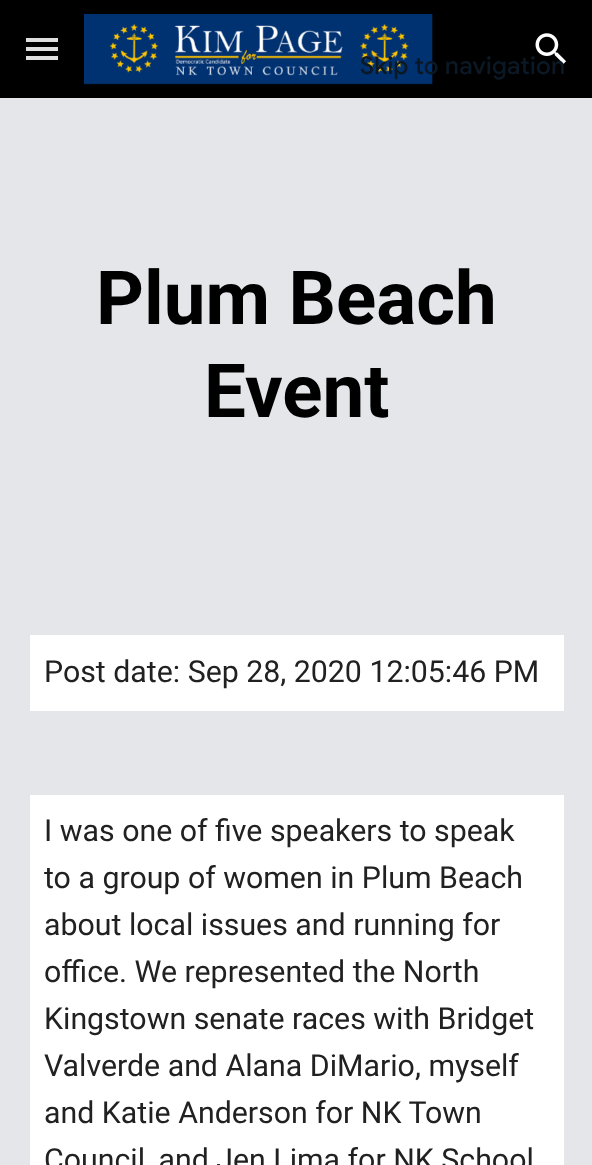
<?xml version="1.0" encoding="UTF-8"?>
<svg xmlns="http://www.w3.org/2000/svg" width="592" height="1165">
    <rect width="100%" height="100%" fill="#E4E6EA"/>
    <rect x="0" y="0" width="592" height="98" fill="#000000"/>
    <image x="84" y="13" width="349" height="72" href="img_01.png"/>
    <image x="535" y="33" width="31" height="31" href="img_02.png"/>
    <text x="360" y="74" font-family="Google Sans" font-size="24.5" font-weight="500" letter-spacing="0.25" fill="#0B1825">Skip to navigation</text>
    <rect x="26" y="38" width="32" height="4" fill="#DFDFDF"/>
    <rect x="26" y="47" width="32" height="4" fill="#DFDFDF"/>
    <rect x="26" y="56" width="32" height="4" fill="#DFDFDF"/>
    <text x="96" y="324" font-family="Roboto" font-size="74.5" font-weight="700" fill="#000000">Plum Beach</text>
    <text x="204" y="417" font-family="Roboto" font-size="74.5" font-weight="700" fill="#000000">Event</text>
    <rect x="30" y="635" width="534" height="76" fill="#FFFFFF"/>
    <text x="44" y="682" font-family="Roboto" font-size="30.3" fill="#212121">Post date: Sep 28, 2020 12:05:46 PM</text>
    <rect x="30" y="795" width="534" height="370" fill="#FFFFFF"/>
    <text font-family="Roboto" font-size="30.3" fill="#212121">
        <tspan x="44" y="841">I was one of five speakers to speak</tspan>
        <tspan x="44" y="888">to a group of women in Plum Beach</tspan>
        <tspan x="44" y="935">about local issues and running for</tspan>
        <tspan x="44" y="982">office. We represented the North</tspan>
        <tspan x="44" y="1029">Kingstown senate races with Bridget</tspan>
        <tspan x="44" y="1076">Valverde and Alana DiMario, myself</tspan>
        <tspan x="44" y="1123">and Katie Anderson for NK Town</tspan>
        <tspan x="44" y="1170">Council, and Jen Lima for NK School</tspan>
    </text>
</svg>
